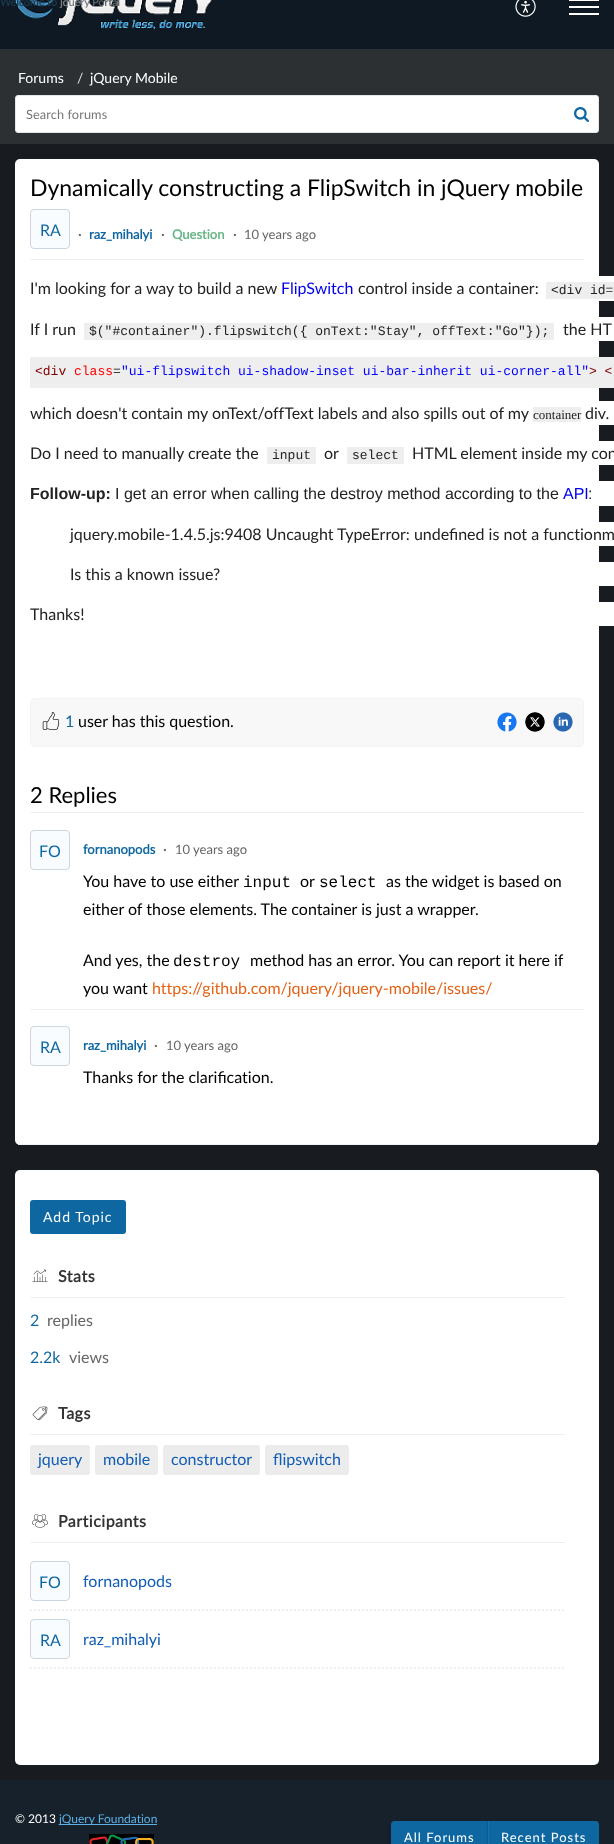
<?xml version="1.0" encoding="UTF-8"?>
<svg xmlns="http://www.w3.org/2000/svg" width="614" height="1844">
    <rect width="100%" height="100%" fill="#2C3033"/>
    <rect x="0" y="0" width="614" height="49" fill="#0F1923"/>
    <image x="15" y="0" width="198" height="29" href="img_01.png"/>
    <image x="515" y="0" width="21" height="17" href="img_02.png"/>
    <rect x="569" y="6" width="30" height="2" fill="#FFFFFF"/>
    <rect x="569" y="0" width="30" height="1" fill="#FFFFFF"/>
    <rect x="569" y="13" width="30" height="2" fill="#FFFFFF"/>
    <text x="0" y="6" font-family="Lato" font-size="10.75" font-weight="700" fill="#1C394D">Welcome to</text>
    <text x="60" y="6" font-family="Lato" font-size="10.75" font-weight="700" fill="#7C8186">jquery</text>
    <text x="92" y="6" font-family="Lato" font-size="10.75" font-weight="700" fill="#5D6368">Portal</text>
    <text x="18" y="83" font-family="Lato" font-size="14" fill="#FFFFFF">Forums</text>
    <text x="77" y="83" font-family="Lato" font-size="14" fill="#DDDDDD">/</text>
    <text x="90" y="83" font-family="Lato" font-size="14" fill="#FFFFFF">jQuery Mobile</text>
    <rect x="15.5" y="95.5" width="583" height="37" rx="2.5" fill="#FFFFFF" stroke="#E5E8EA"/>
    <text x="26" y="119" font-family="Lato" font-size="12.75" letter-spacing="0.1" fill="#777777">Search forums</text>
    <image x="574" y="107" width="15" height="15" href="img_03.png"/>
    <rect x="0" y="144" width="614" height="1636" fill="#181C21"/>
    <rect x="15" y="159" width="584" height="986" rx="5" fill="#FFFFFF"/>
    <rect x="18" y="1144" width="579" height="1" fill="#F2F2F2"/>
    <rect x="30" y="259" width="554" height="1" fill="#EFEFEF"/>
    <text x="30" y="196" font-family="Lato" font-size="23" fill="#000000">Dynamically constructing a FlipSwitch in jQuery mobile</text>
    <rect x="30.5" y="209.5" width="39" height="39" rx="3.5" fill="#F8FCFF" stroke="#CDD6DD"/>
    <text x="40" y="236" font-family="Lato" font-size="16" fill="#0F67A1">RA</text>
    <text x="78" y="239" font-family="Lato" font-size="13" font-weight="700" fill="#666666">·</text>
    <text x="89" y="239" font-family="Lato" font-size="13" font-weight="700" fill="#0F67A1">raz_mihalyi</text>
    <text x="161" y="239" font-family="Lato" font-size="13" font-weight="700" fill="#666666">·</text>
    <text x="172" y="239" font-family="Lato" font-size="13" font-weight="700" fill="#66B585">Question</text>
    <text x="233" y="239" font-family="Lato" font-size="13" font-weight="700" fill="#666666">·</text>
    <text x="244" y="239" font-family="Lato" font-size="13" fill="#666666">10 years ago</text>
    <rect x="599" y="276" width="15" height="25" fill="#FFFFFF"/>
    <text x="30" y="294" font-family="Lato" font-size="16" fill="#222222">I'm looking for a way to build a new</text>
    <text x="281" y="294" font-family="Lato" font-size="16" fill="#0000EE">FlipSwitch</text>
    <text x="358" y="294" font-family="Lato" font-size="16" fill="#222222">control inside a container:</text>
    <rect x="546" y="282" width="68" height="17" fill="#EEEEEE"/>
    <text x="551" y="294" font-family="Liberation Mono" font-size="13" fill="#222222">&lt;div id=</text>
    <rect x="599" y="317" width="15" height="24" fill="#FFFFFF"/>
    <text x="30" y="335" font-family="Lato" font-size="16" fill="#222222">If I run</text>
    <rect x="84" y="323" width="470" height="17" fill="#EEEEEE"/>
    <text x="89" y="335" font-family="Liberation Mono" font-size="13" fill="#222222">$("#container").flipswitch({ onText:"Stay", offText:"Go"});</text>
    <text x="563" y="335" font-family="Lato" font-size="16" fill="#222222">the HT</text>
    <rect x="30" y="357" width="584" height="31" fill="#EEEEEE"/>
    <text x="35" y="375" font-family="Liberation Mono" font-size="13" fill="#800000">&lt;div</text>
    <text x="74" y="375" font-family="Liberation Mono" font-size="13" fill="#FF0000">class</text>
    <text x="113" y="375" font-family="Liberation Mono" font-size="13" fill="#000000">=</text>
    <text x="121" y="375" font-family="Liberation Mono" font-size="13" fill="#0000FF">"ui-flipswitch ui-shadow-inset ui-bar-inherit ui-corner-all"</text>
    <text x="589" y="375" font-family="Liberation Mono" font-size="13" fill="#800000">&gt; &lt;</text>
    <rect x="599" y="401" width="15" height="24" fill="#FFFFFF"/>
    <text x="30" y="419" font-family="Lato" font-size="16" fill="#222222">which doesn't contain my onText/offText labels and also spills out of my</text>
    <rect x="533" y="407" width="48" height="15" fill="#EEEEEE"/>
    <text x="533" y="419" font-family="Liberation Serif" font-size="13" fill="#222222">container</text>
    <text x="585" y="419" font-family="Lato" font-size="16" fill="#222222">div.</text>
    <rect x="599" y="441" width="15" height="24" fill="#FFFFFF"/>
    <text x="30" y="459" font-family="Lato" font-size="16" fill="#222222">Do I need to manually create the</text>
    <rect x="267" y="447" width="49" height="17" fill="#EEEEEE"/>
    <text x="272" y="459" font-family="Liberation Mono" font-size="13" fill="#222222">input</text>
    <text x="324" y="459" font-family="Lato" font-size="16" fill="#222222">or</text>
    <rect x="347" y="447" width="57" height="17" fill="#EEEEEE"/>
    <text x="352" y="459" font-family="Liberation Mono" font-size="13" fill="#222222">select</text>
    <text x="412" y="459" font-family="Lato" font-size="16" fill="#222222">HTML element inside my con</text>
    <rect x="599" y="481" width="15" height="25" fill="#FFFFFF"/>
    <text x="30" y="499" font-family="Liberation Sans" font-size="16" font-weight="700" fill="#222222">Follow-up:</text>
    <text x="115" y="499" font-family="Liberation Sans" font-size="16" fill="#222222">I get an error when calling the destroy method according to the</text>
    <text x="563" y="499" font-family="Liberation Sans" font-size="16" fill="#0000EE">API</text>
    <text x="588" y="499" font-family="Liberation Sans" font-size="16" fill="#222222">:</text>
    <rect x="599" y="522" width="15" height="24" fill="#FFFFFF"/>
    <text x="70" y="540" font-family="Lato" font-size="16" fill="#222222">jquery.mobile-1.4.5.js:9408 Uncaught TypeError: undefined is not a functionm</text>
    <rect x="599" y="562" width="15" height="24" fill="#FFFFFF"/>
    <text x="70" y="580" font-family="Lato" font-size="16" fill="#222222">Is this a known issue?</text>
    <rect x="599" y="602" width="15" height="24" fill="#FFFFFF"/>
    <text x="30" y="620" font-family="Lato" font-size="16" fill="#222222">Thanks!</text>
    <rect x="30.5" y="698.5" width="553" height="48" rx="4.5" fill="#F8F8F8" stroke="#F3F3F3"/>
    <image x="42" y="712" width="18" height="19" href="img_04.png"/>
    <text x="65" y="727" font-family="Lato" font-size="16" fill="#0F67A1">1</text>
    <text x="78" y="727" font-family="Lato" font-size="16" fill="#000000">user has this question.</text>
    <image x="497" y="712" width="20" height="20" href="img_05.png"/>
    <image x="525" y="712" width="20" height="20" href="img_06.png"/>
    <image x="553" y="712" width="20" height="20" href="img_07.png"/>
    <rect x="30" y="812" width="554" height="1" fill="#EFEFEF"/>
    <text x="30" y="803" font-family="Lato" font-size="22" fill="#000000">2 Replies</text>
    <rect x="30.5" y="830.5" width="39" height="39" rx="3.5" fill="#F8FCFF" stroke="#CDD6DD"/>
    <text x="39" y="857" font-family="Lato" font-size="16" fill="#0F67A1">FO</text>
    <text x="83" y="854" font-family="Lato" font-size="13" font-weight="700" fill="#0F67A1">fornanopods</text>
    <text x="163" y="854" font-family="Lato" font-size="13" font-weight="700" fill="#666666">·</text>
    <text x="175" y="854" font-family="Lato" font-size="13" fill="#666666">10 years ago</text>
    <text x="83" y="887" font-family="Lato" font-size="16" fill="#000000">You have to use either</text>
    <text x="243" y="887" font-family="Liberation Mono" font-size="16" fill="#000000">input</text>
    <text x="300" y="887" font-family="Lato" font-size="16" fill="#000000">or</text>
    <text x="319" y="887" font-family="Liberation Mono" font-size="16" fill="#000000">select</text>
    <text x="386" y="887" font-family="Lato" font-size="16" fill="#000000">as the widget is based on</text>
    <text x="83" y="915" font-family="Lato" font-size="16" fill="#000000">either of those elements. The container is just a wrapper.</text>
    <text x="83" y="966" font-family="Lato" font-size="16" fill="#000000">And yes, the</text>
    <text x="173" y="966" font-family="Liberation Mono" font-size="16" fill="#000000">destroy</text>
    <text x="250" y="966" font-family="Lato" font-size="16" fill="#000000">method has an error. You can report it here if</text>
    <text x="83" y="994" font-family="Lato" font-size="16" fill="#000000">you want</text>
    <text x="152" y="994" font-family="Lato" font-size="16" fill="#E46317">https://github.com/jquery/jquery-mobile/issues/</text>
    <rect x="30" y="1009" width="554" height="1" fill="#F2F2F2"/>
    <rect x="30.5" y="1026.5" width="39" height="39" rx="3.5" fill="#F8FCFF" stroke="#CDD6DD"/>
    <text x="40" y="1053" font-family="Lato" font-size="16" fill="#0F67A1">RA</text>
    <text x="83" y="1050" font-family="Lato" font-size="13" font-weight="700" fill="#0F67A1">raz_mihalyi</text>
    <text x="154" y="1050" font-family="Lato" font-size="13" font-weight="700" fill="#666666">·</text>
    <text x="166" y="1050" font-family="Lato" font-size="13" fill="#666666">10 years ago</text>
    <text x="83" y="1083" font-family="Lato" font-size="16" fill="#000000">Thanks for the clarification.</text>
    <rect x="15" y="1170" width="584" height="595" rx="5" fill="#FFFFFF"/>
    <rect x="30" y="1200" width="96" height="34" rx="3" fill="#0F67A1"/>
    <text x="43" y="1222" font-family="Lato" font-size="14" letter-spacing="1" fill="#FFFFFF">Add Topic</text>
    <rect x="30" y="1297" width="535" height="1" fill="#EFEFEF"/>
    <image x="32" y="1269" width="16" height="13" href="img_08.png"/>
    <text x="58" y="1282" font-family="Lato" font-size="16" font-weight="700" letter-spacing="0.5" fill="#333333">Stats</text>
    <text x="30" y="1326" font-family="Lato" font-size="16" fill="#0F67A1">2</text>
    <text x="47" y="1326" font-family="Lato" font-size="16" fill="#666666">replies</text>
    <text x="30" y="1363" font-family="Lato" font-size="16" fill="#0F67A1">2.2k</text>
    <text x="69" y="1363" font-family="Lato" font-size="16" fill="#666666">views</text>
    <rect x="30" y="1434" width="535" height="1" fill="#EFEFEF"/>
    <image x="32" y="1406" width="16" height="15" href="img_09.png"/>
    <text x="58" y="1419" font-family="Lato" font-size="16" font-weight="700" letter-spacing="0.5" fill="#333333">Tags</text>
    <rect x="30" y="1445" width="60" height="30" rx="3" fill="#ECECEC"/>
    <text x="38" y="1465" font-family="Lato" font-size="16" fill="#105CB6">jquery</text>
    <rect x="95" y="1445" width="63" height="30" rx="3" fill="#ECECEC"/>
    <text x="103" y="1465" font-family="Lato" font-size="16" fill="#105CB6">mobile</text>
    <rect x="163" y="1445" width="97" height="30" rx="3" fill="#ECECEC"/>
    <text x="171" y="1465" font-family="Lato" font-size="16" fill="#105CB6">constructor</text>
    <rect x="265" y="1445" width="84" height="30" rx="3" fill="#ECECEC"/>
    <text x="273" y="1465" font-family="Lato" font-size="16" fill="#105CB6">flipswitch</text>
    <rect x="30" y="1542" width="535" height="1" fill="#EFEFEF"/>
    <image x="32" y="1514" width="16" height="14" href="img_10.png"/>
    <text x="58" y="1527" font-family="Lato" font-size="16" font-weight="700" letter-spacing="0.5" fill="#333333">Participants</text>
    <path d="M 30 1610 H 565" fill="none" stroke="#EFEFEF" stroke-width="2" stroke-dasharray="2 2"/>
    <rect x="30.5" y="1561.5" width="39" height="39" rx="3.5" fill="#F8FCFF" stroke="#CDD6DD"/>
    <text x="39" y="1588" font-family="Lato" font-size="16" fill="#0F67A1">FO</text>
    <text x="83" y="1587" font-family="Lato" font-size="16" fill="#105CB6">fornanopods</text>
    <path d="M 30 1668 H 565" fill="none" stroke="#EFEFEF" stroke-width="2" stroke-dasharray="2 2"/>
    <rect x="30.5" y="1619.5" width="39" height="39" rx="3.5" fill="#F8FCFF" stroke="#CDD6DD"/>
    <text x="40" y="1646" font-family="Lato" font-size="16" fill="#0F67A1">RA</text>
    <text x="83" y="1645" font-family="Lato" font-size="16" fill="#105CB6">raz_mihalyi</text>
    <rect x="0" y="1780" width="614" height="64" fill="#17212B"/>
    <text x="15" y="1823" font-family="Lato" font-size="12" fill="#FFFFFF">© 2013</text>
    <rect x="59" y="1824" width="98" height="1" fill="#5DB0E6"/>
    <text x="59" y="1823" font-family="Lato" font-size="12" fill="#5DB0E6">jQuery Foundation</text>
    <image x="89" y="1834" width="65" height="10" href="img_11.png"/>
    <path d="M 394 1821 H 488 V 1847 H 394 C 392.5 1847 391 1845.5 391 1844 V 1824 C 391 1822.5 392.5 1821 394 1821 Z" fill="#0F67A1"/>
    <path d="M 488 1821 L 487 1822 V 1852 L 488 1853 Z" fill="#0D5995"/>
    <text x="404" y="1842" font-family="Lato" font-size="13" letter-spacing="1" fill="#FFFFFF">All Forums</text>
    <path d="M 488 1821 H 596 C 597.5 1821 599 1822.5 599 1824 V 1844 C 599 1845.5 597.5 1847 596 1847 H 488 Z" fill="#0F67A1"/>
    <path d="M 488 1821 V 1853 L 489 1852 V 1822 Z" fill="#1175AE"/>
    <text x="501" y="1842" font-family="Lato" font-size="13" letter-spacing="1" fill="#FFFFFF">Recent Posts</text>
</svg>
